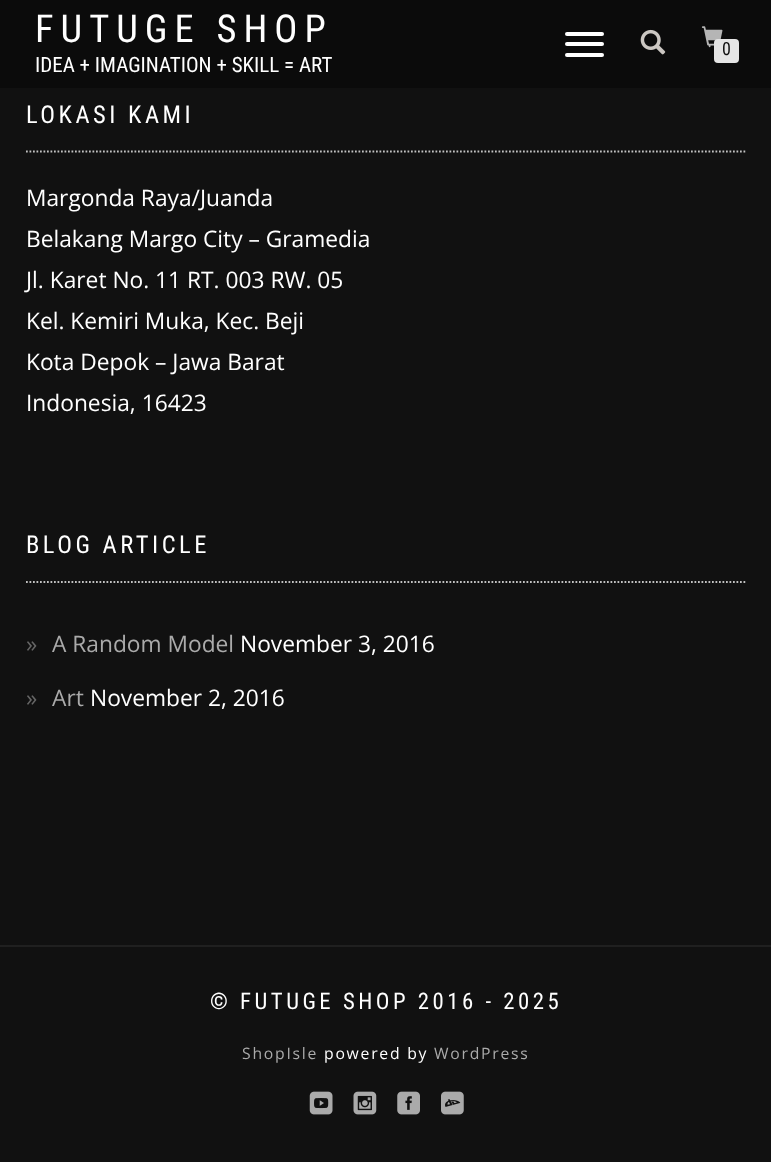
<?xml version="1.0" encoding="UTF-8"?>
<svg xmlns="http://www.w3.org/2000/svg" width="771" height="1162">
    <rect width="100%" height="100%" fill="#111111"/>
    <rect x="0" y="0" width="771" height="88" fill="#0B0B0B"/>
    <text x="35" y="42" font-family="Roboto Condensed" font-size="38.5" letter-spacing="7" fill="#FFFFFF">FUTUGE SHOP</text>
    <text x="35" y="72" font-family="Roboto Condensed" font-size="21" fill="#FFFFFF">IDEA + IMAGINATION + SKILL = ART</text>
    <rect x="565" y="32" width="39" height="4" rx="2" fill="#FFFFFF"/>
    <rect x="565" y="42" width="39" height="4" rx="2" fill="#FFFFFF"/>
    <rect x="565" y="53" width="39" height="4" rx="2" fill="#FFFFFF"/>
    <image x="640" y="29" width="26" height="26" href="img_01.png"/>
    <image x="701" y="26" width="22" height="22" href="img_02.png"/>
    <rect x="714" y="39" width="25" height="24" rx="4" fill="#E5E5E5"/>
    <text x="722" y="55" font-family="Roboto Condensed" font-size="18" fill="#111111">0</text>
    <path d="M 26 151.5 H 745.5" fill="none" stroke="#C2C2C2" stroke-width="1.8" stroke-dasharray="1.75 1.75"/>
    <text x="26" y="123" font-family="Roboto Condensed" font-size="24.5" letter-spacing="3.5" fill="#FFFFFF">LOKASI KAMI</text>
    <text font-family="Open Sans" font-size="22.75" fill="#FFFFFF">
        <tspan x="26" y="206">Margonda Raya/Juanda</tspan>
        <tspan x="26" y="247">Belakang Margo City – Gramedia</tspan>
        <tspan x="26" y="288">Jl. Karet No. 11 RT. 003 RW. 05</tspan>
        <tspan x="26" y="329">Kel. Kemiri Muka, Kec. Beji</tspan>
        <tspan x="26" y="370">Kota Depok – Jawa Barat</tspan>
        <tspan x="26" y="411">Indonesia, 16423</tspan>
    </text>
    <path d="M 26 582 H 745.5" fill="none" stroke="#C2C2C2" stroke-width="1.8" stroke-dasharray="1.75 1.75"/>
    <text x="26" y="553" font-family="Roboto Condensed" font-size="24.5" letter-spacing="3.5" fill="#FFFFFF">BLOG ARTICLE</text>
    <text x="26" y="652" font-family="Open Sans" font-size="22.75" fill="#666666">»</text>
    <text x="52" y="652" font-family="Open Sans" font-size="22.75" fill="#AAAAAA">A Random Model</text>
    <text x="240" y="652" font-family="Open Sans" font-size="22.75" fill="#FFFFFF">November 3, 2016</text>
    <text x="26" y="706" font-family="Open Sans" font-size="22.75" fill="#666666">»</text>
    <text x="52" y="706" font-family="Open Sans" font-size="22.75" fill="#AAAAAA">Art</text>
    <text x="90" y="706" font-family="Open Sans" font-size="22.75" fill="#FFFFFF">November 2, 2016</text>
    <rect x="0" y="945" width="771" height="2" fill="#202020"/>
    <text x="210" y="1009" font-family="Roboto Condensed" font-size="22.75" letter-spacing="3.5" fill="#FFFFFF">© FUTUGE SHOP 2016 - 2025</text>
    <text x="242" y="1059" font-family="Open Sans" font-size="15.75" letter-spacing="1.75" fill="#AAAAAA">ShopIsle</text>
    <text x="324" y="1059" font-family="Open Sans" font-size="15.75" letter-spacing="1.75" fill="#FFFFFF">powered by</text>
    <text x="434" y="1059" font-family="Open Sans" font-size="15.75" letter-spacing="1.75" fill="#AAAAAA">WordPress</text>
    <image x="309" y="1091" width="24" height="24" href="img_03.png"/>
    <image x="353" y="1091" width="24" height="24" href="img_04.png"/>
    <image x="397" y="1091" width="23" height="24" href="img_05.png"/>
    <image x="441" y="1091" width="23" height="24" href="img_06.png"/>
</svg>
